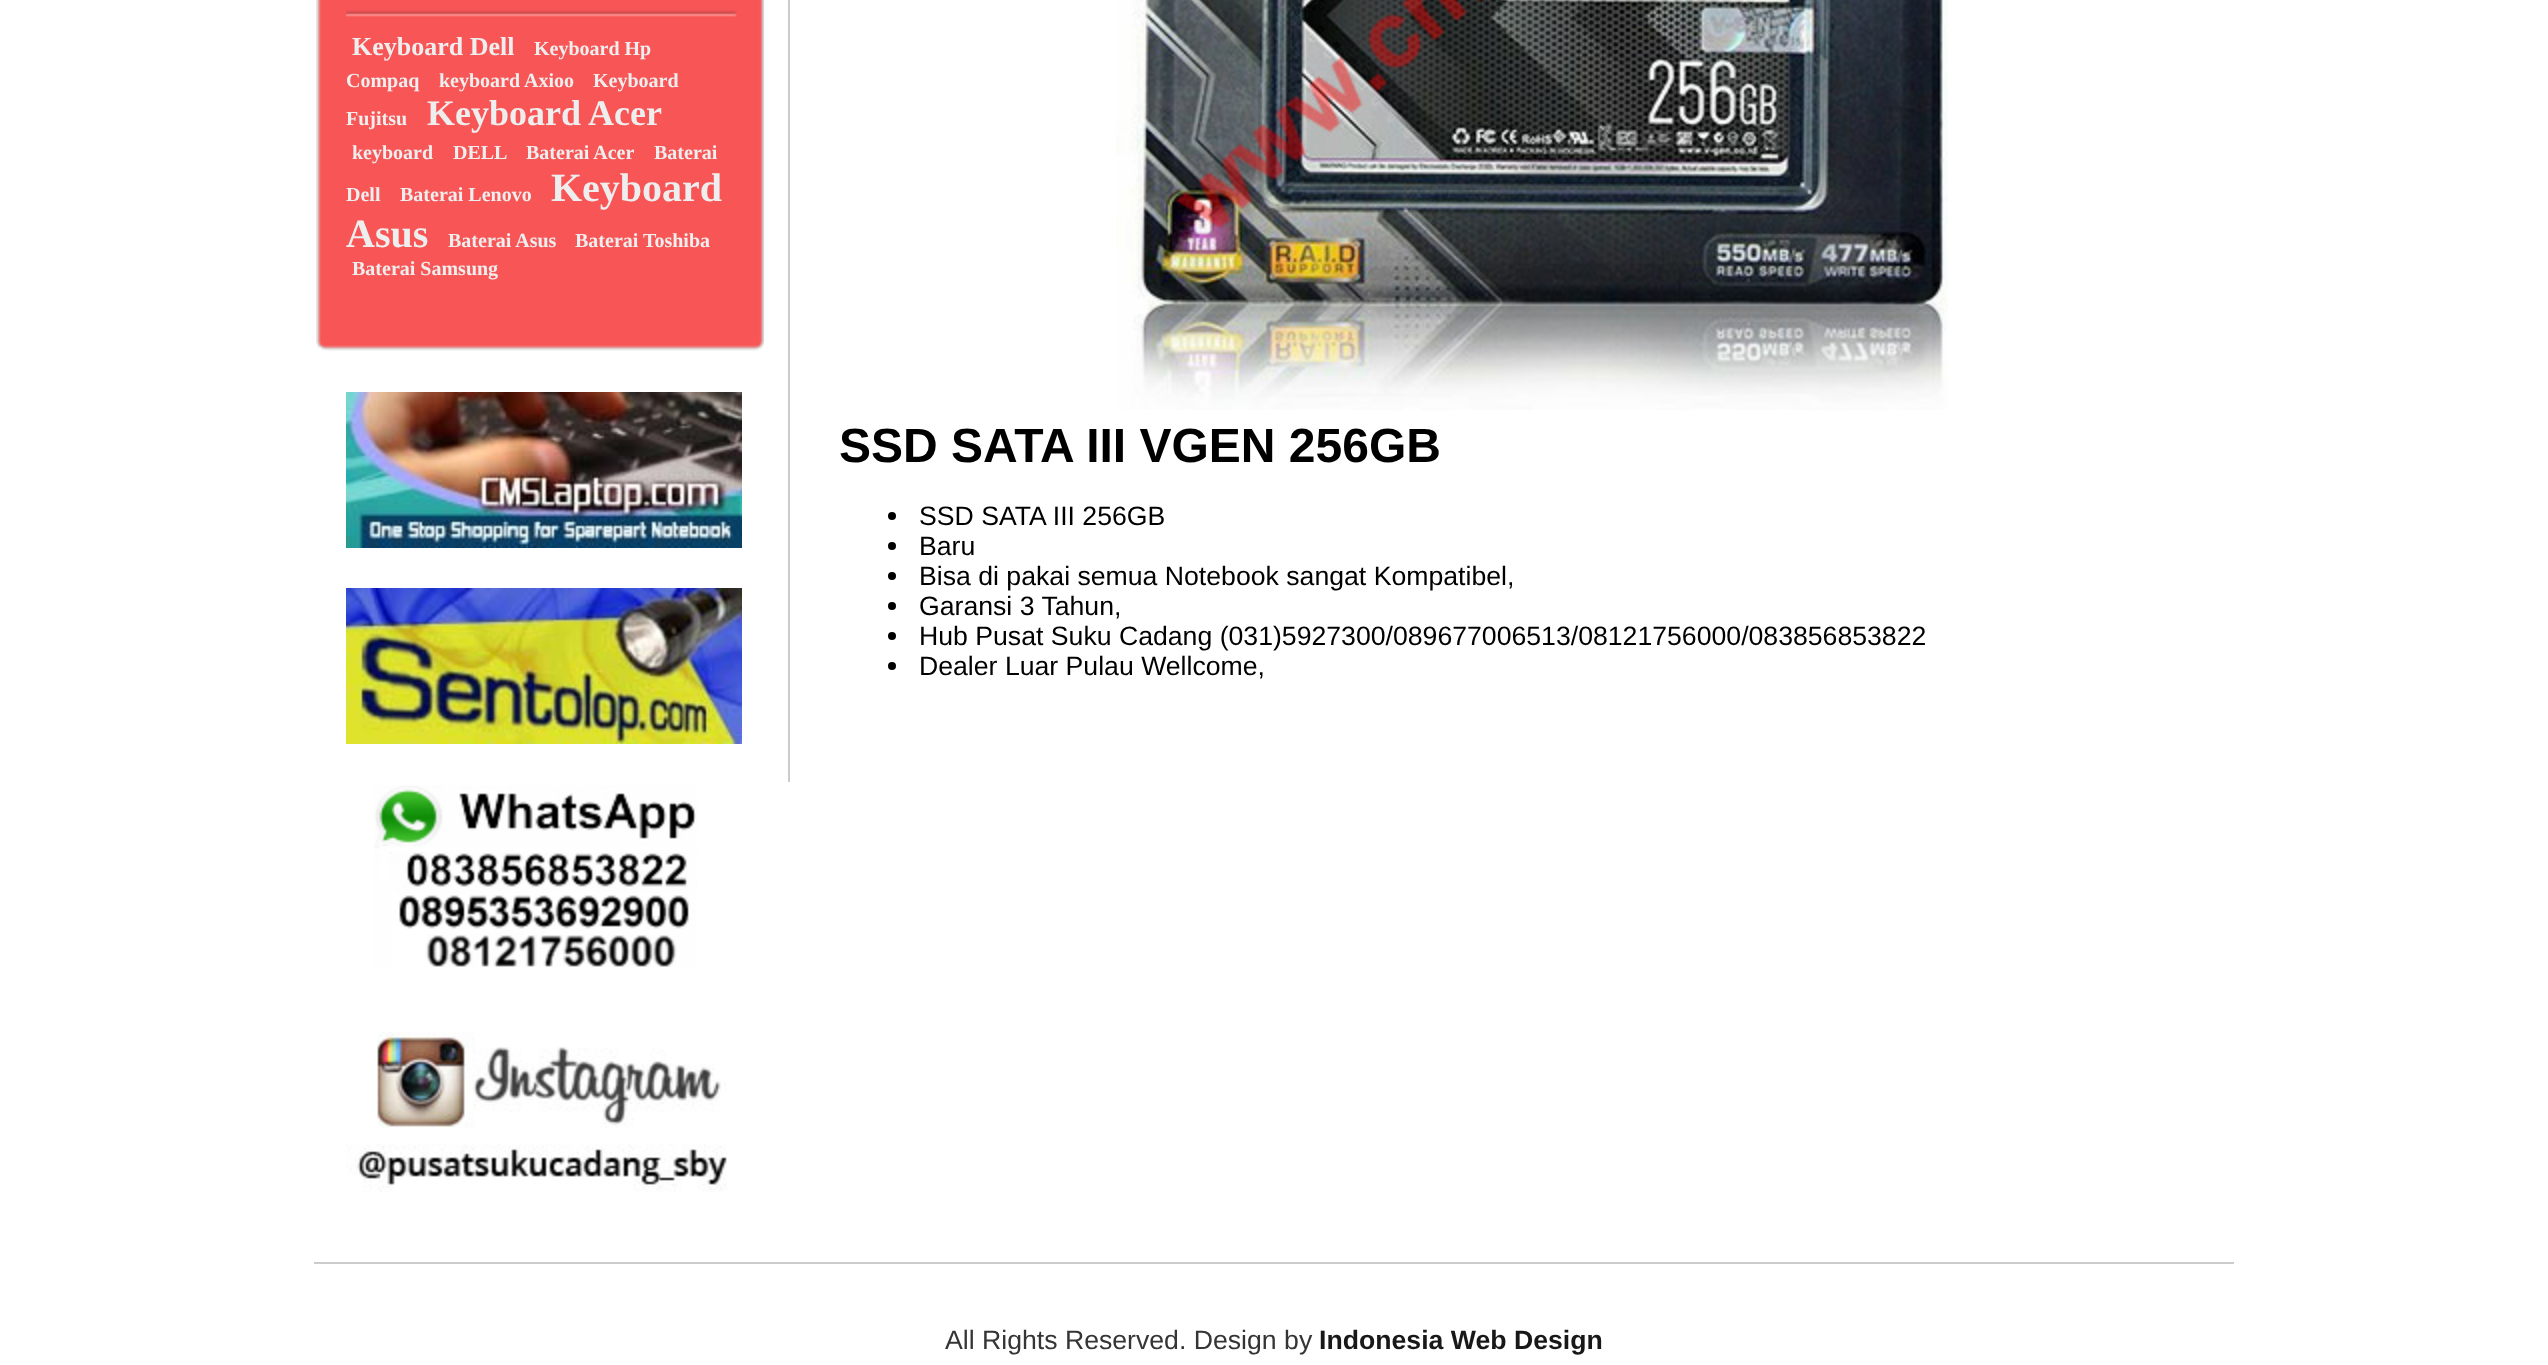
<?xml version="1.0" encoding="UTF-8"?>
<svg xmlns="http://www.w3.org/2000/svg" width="2548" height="1365">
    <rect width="100%" height="100%" fill="#FFFFFF"/>
    <image x="316" y="0" width="448" height="20" href="img_01.png"/>
    <image x="316" y="20" width="448" height="258" href="img_02.png"/>
    <text x="352" y="55" font-family="Liberation Serif" font-size="26" font-weight="700" fill="#EEEEEE">Keyboard Dell</text>
    <text x="534" y="55" font-family="Liberation Serif" font-size="20" font-weight="700" fill="#EEEEEE">Keyboard Hp</text>
    <text x="346" y="87" font-family="Liberation Serif" font-size="20" font-weight="700" fill="#EEEEEE">Compaq</text>
    <text x="439" y="87" font-family="Liberation Serif" font-size="20" font-weight="700" fill="#EEEEEE">keyboard Axioo</text>
    <text x="593" y="87" font-family="Liberation Serif" font-size="20" font-weight="700" fill="#EEEEEE">Keyboard</text>
    <text x="346" y="125" font-family="Liberation Serif" font-size="20" font-weight="700" fill="#EEEEEE">Fujitsu</text>
    <text x="427" y="125" font-family="Liberation Serif" font-size="36" font-weight="700" fill="#EEEEEE">Keyboard Acer</text>
    <text x="352" y="159" font-family="Liberation Serif" font-size="20" font-weight="700" fill="#EEEEEE">keyboard</text>
    <text x="453" y="159" font-family="Liberation Serif" font-size="20" font-weight="700" fill="#EEEEEE">DELL</text>
    <text x="526" y="159" font-family="Liberation Serif" font-size="20" font-weight="700" fill="#EEEEEE">Baterai Acer</text>
    <text x="654" y="159" font-family="Liberation Serif" font-size="20" font-weight="700" fill="#EEEEEE">Baterai</text>
    <text x="346" y="201" font-family="Liberation Serif" font-size="20" font-weight="700" fill="#EEEEEE">Dell</text>
    <text x="400" y="201" font-family="Liberation Serif" font-size="20" font-weight="700" fill="#EEEEEE">Baterai Lenovo</text>
    <text x="551" y="201" font-family="Liberation Serif" font-size="40" font-weight="700" fill="#EEEEEE">Keyboard</text>
    <text x="346" y="247" font-family="Liberation Serif" font-size="40" font-weight="700" fill="#EEEEEE">Asus</text>
    <text x="448" y="247" font-family="Liberation Serif" font-size="20" font-weight="700" fill="#EEEEEE">Baterai Asus</text>
    <text x="575" y="247" font-family="Liberation Serif" font-size="20" font-weight="700" fill="#EEEEEE">Baterai Toshiba</text>
    <image x="316" y="278" width="448" height="73" href="img_03.png"/>
    <text x="352" y="275" font-family="Liberation Serif" font-size="20" font-weight="700" fill="#EEEEEE">Baterai Samsung</text>
    <image x="346" y="392" width="396" height="156" href="img_04.png"/>
    <image x="346" y="588" width="396" height="156" href="img_05.png"/>
    <image x="374" y="785" width="323" height="182" href="img_06.png"/>
    <image x="346" y="1032" width="381" height="160" href="img_07.png"/>
    <rect x="788" y="0" width="2" height="782" fill="#CCCCCC"/>
    <image x="1116" y="0" width="832" height="410" href="img_08.png"/>
    <text x="839" y="462" font-family="Liberation Sans" font-size="48" font-weight="700" fill="#000000">SSD SATA III VGEN 256GB</text>
    <circle cx="892" cy="516" r="4" fill="#000000"/>
    <text x="919" y="525" font-family="Liberation Sans" font-size="26.65" fill="#000000">SSD SATA III 256GB</text>
    <circle cx="892" cy="546" r="4" fill="#000000"/>
    <text x="919" y="555" font-family="Liberation Sans" font-size="26.65" fill="#000000">Baru</text>
    <circle cx="892" cy="576" r="4" fill="#000000"/>
    <text x="919" y="585" font-family="Liberation Sans" font-size="26.65" fill="#000000">Bisa di pakai semua Notebook sangat Kompatibel,</text>
    <circle cx="892" cy="606" r="4" fill="#000000"/>
    <text x="919" y="615" font-family="Liberation Sans" font-size="26.65" fill="#000000">Garansi 3 Tahun,</text>
    <circle cx="892" cy="636" r="4" fill="#000000"/>
    <text x="919" y="645" font-family="Liberation Sans" font-size="26.65" fill="#000000">Hub Pusat Suku Cadang (031)5927300/089677006513/08121756000/083856853822</text>
    <circle cx="892" cy="666" r="4" fill="#000000"/>
    <text x="919" y="675" font-family="Liberation Sans" font-size="26.65" fill="#000000">Dealer Luar Pulau Wellcome,</text>
    <rect x="314" y="1262" width="1920" height="2" fill="#CCCCCC"/>
    <text x="945" y="1349" font-family="Liberation Sans" font-size="26.65" fill="#353535">All Rights Reserved. Design by</text>
    <text x="1319" y="1349" font-family="Liberation Sans" font-size="26.65" font-weight="700" fill="#181818">Indonesia Web Design</text>
</svg>
